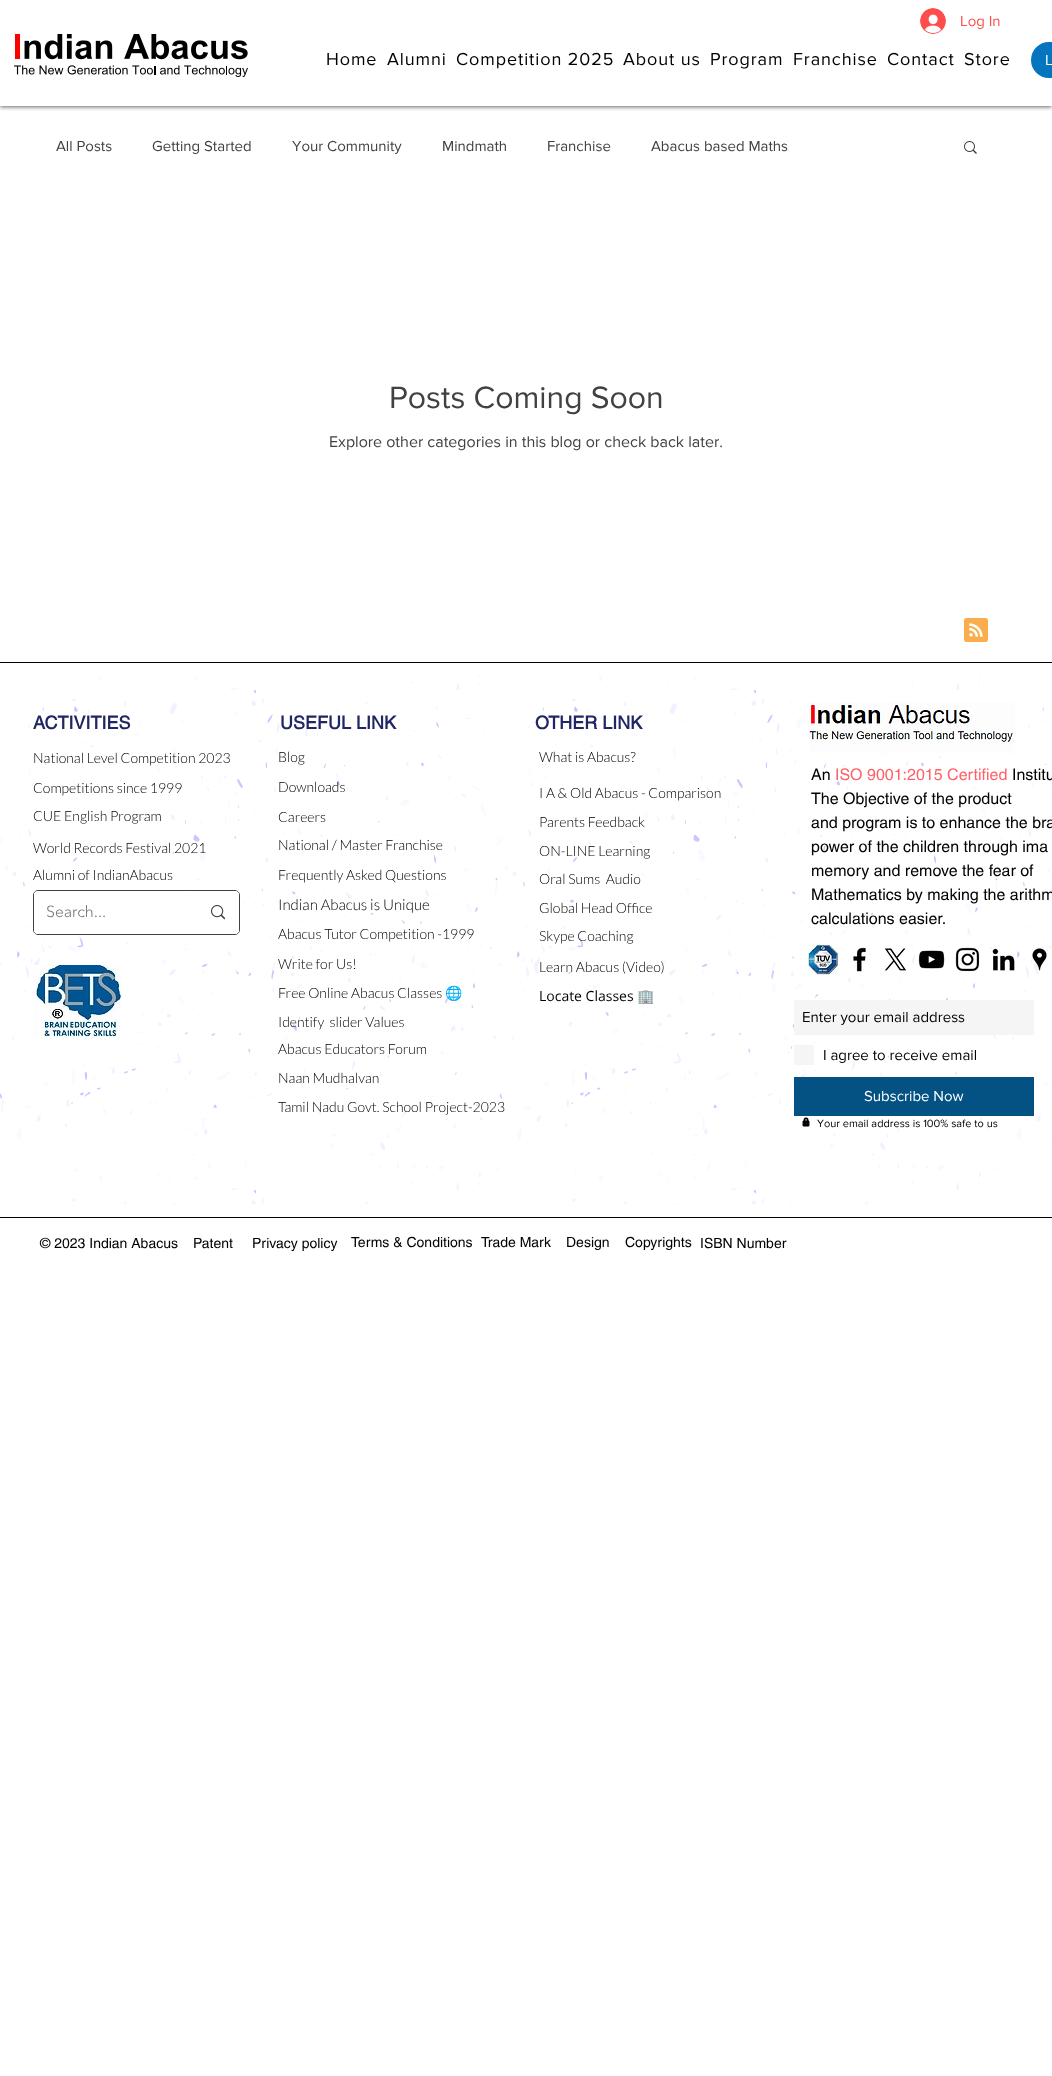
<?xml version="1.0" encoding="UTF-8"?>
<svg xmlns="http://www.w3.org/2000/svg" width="1052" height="2076">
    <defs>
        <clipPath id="clip1"><rect x="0" y="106" width="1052" height="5"/></clipPath>
        <filter id="blur1" x="-50%" y="-200%" width="200%" height="500%"><feGaussianBlur stdDeviation="2"/></filter>
    </defs>
    <rect width="100%" height="100%" fill="#FFFFFF"/>
    <g clip-path="url(#clip1)">
        <rect x="0" y="1" width="1052" height="106" fill="#000000" fill-opacity="0.6" filter="url(#blur1)"/>
    </g>
    <image x="920" y="8" width="26" height="26" href="img_01.png"/>
    <text x="960" y="26" font-family="'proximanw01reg'" font-size="15" fill="#FF4D4D">Log In</text>
    <image x="14" y="34" width="234" height="43" href="img_02.png"/>
    <text x="326" y="65" font-family="'proximanw01reg'" font-size="18" letter-spacing="0.9" fill="#000000">Home</text>
    <text x="387" y="65" font-family="'proximanw01reg'" font-size="18" letter-spacing="0.9" fill="#000000">Alumni</text>
    <text x="456" y="65" font-family="'proximanw01reg'" font-size="18" letter-spacing="0.9" fill="#000000">Competition 2025</text>
    <text x="623" y="65" font-family="'proximanw01reg'" font-size="18" letter-spacing="0.9" fill="#000000">About us</text>
    <text x="710" y="65" font-family="'proximanw01reg'" font-size="18" letter-spacing="0.9" fill="#000000">Program</text>
    <text x="793" y="65" font-family="'proximanw01reg'" font-size="18" letter-spacing="0.9" fill="#000000">Franchise</text>
    <text x="887" y="65" font-family="'proximanw01reg'" font-size="18" letter-spacing="0.9" fill="#000000">Contact</text>
    <text x="964" y="65" font-family="'proximanw01reg'" font-size="18" letter-spacing="0.9" fill="#000000">Store</text>
    <rect x="1032" y="43" width="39" height="34" rx="17" fill="#0675BF" stroke="#0675BF" stroke-width="2"/>
    <text x="1045" y="65" font-family="'proximanw01reg'" font-size="15" fill="#FFFFFF">L</text>
    <text x="56" y="151" font-family="'proximanw01reg'" font-size="15" fill="#414141">All Posts</text>
    <text x="152" y="151" font-family="'proximanw01reg'" font-size="15" fill="#414141">Getting Started</text>
    <text x="292" y="151" font-family="'proximanw01reg'" font-size="15" fill="#414141">Your Community</text>
    <text x="442" y="151" font-family="'proximanw01reg'" font-size="15" fill="#414141">Mindmath</text>
    <text x="547" y="151" font-family="'proximanw01reg'" font-size="15" fill="#414141">Franchise</text>
    <text x="651" y="151" font-family="'proximanw01reg'" font-size="15" fill="#414141">Abacus based Maths</text>
    <image x="964" y="141" width="13" height="13" href="img_03.png"/>
    <text x="389" y="408" font-family="'proximanw01reg'" font-size="32" fill="#414141">Posts Coming Soon</text>
    <text x="329" y="447" font-family="'proximanw01reg'" font-size="16" fill="#414141">Explore other categories in this blog or check back later.</text>
    <image x="964" y="618" width="24" height="24" href="img_04.png"/>
    <rect x="0" y="662" width="1052" height="1" fill="#000000"/>
    <image x="0" y="676" width="1052" height="528" href="img_05.png"/>
    <text x="33" y="729" font-family="helvetica" font-size="18" font-weight="700" fill="#1F2663">ACTIVITIES</text>
    <text x="33" y="763" font-family="Lato" font-size="14" font-weight="300" fill="#000000">National Level Competition 2023</text>
    <text x="33" y="793" font-family="Lato" font-size="14" font-weight="300" fill="#000000">Competitions since 1999</text>
    <text x="33" y="821" font-family="Lato" font-size="14" font-weight="300" fill="#000000">CUE English Program</text>
    <text font-family="Lato" font-size="14" font-weight="300" fill="#000000">
        <tspan x="33" y="853">World Records Festival 2021</tspan>
        <tspan x="33" y="880">Alumni of IndianAbacus</tspan>
    </text>
    <rect x="33.5" y="890.5" width="206" height="44" rx="4.5" fill="none" stroke="#414141"/>
    <rect x="34" y="891" width="205" height="43" rx="4" fill="#FFFFFF"/>
    <text x="46" y="917" font-family="'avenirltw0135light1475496'" font-size="16" font-weight="300" fill="#787878">Search...</text>
    <image x="211" y="905" width="14" height="15" href="img_06.png"/>
    <image x="33" y="965" width="89" height="73" href="img_07.png"/>
    <text x="280" y="729" font-family="helvetica" font-size="18" font-weight="700" fill="#1F2663">USEFUL LINK</text>
    <text x="278" y="762" font-family="Lato" font-size="14" font-weight="300" fill="#000000">Blog</text>
    <text x="278" y="792" font-family="Lato" font-size="14" font-weight="300" fill="#000000">Downloads</text>
    <text x="278" y="822" font-family="Lato" font-size="14" font-weight="300" fill="#000000">Careers</text>
    <text x="278" y="850" font-family="Lato" font-size="14" font-weight="300" fill="#000000">National / Master Franchise</text>
    <text x="278" y="880" font-family="Lato" font-size="14" font-weight="300" fill="#000000">Frequently Asked Questions</text>
    <text x="278" y="910" font-family="Lato" font-size="15" font-weight="300" fill="#000000">Indian Abacus is Unique</text>
    <text x="278" y="939" font-family="Lato" font-size="14" font-weight="300" fill="#000000">Abacus Tutor Competition -1999</text>
    <text x="278" y="969" font-family="Lato" font-size="14" font-weight="300" fill="#000000">Write for Us!</text>
    <text x="278" y="998" font-family="Lato" font-size="14" font-weight="300" fill="#000000">Free Online Abacus Classes</text>
    <text x="445" y="998" font-family="Noto Color Emoji" font-size="14" fill="#000000">🌐</text>
    <text font-family="Lato" font-size="14" font-weight="300" fill="#000000" xml:space="preserve"><tspan x="278" y="1027">Identify  slider Values</tspan><tspan x="278" y="1054">Abacus Educators Forum</tspan></text>
    <text x="278" y="1083" font-family="Lato" font-size="14" font-weight="300" fill="#000000">Naan Mudhalvan</text>
    <text x="278" y="1112" font-family="Lato" font-size="14" font-weight="300" fill="#000000">Tamil Nadu Govt. School Project-2023</text>
    <text x="535" y="729" font-family="helvetica" font-size="18" font-weight="700" fill="#1F2663">OTHER LINK</text>
    <text x="539" y="762" font-family="Lato" font-size="14" font-weight="300" fill="#000000">What is Abacus?</text>
    <text x="539" y="798" font-family="Lato" font-size="14" font-weight="300" fill="#000000">I A &amp; Old Abacus - Comparison</text>
    <text x="539" y="827" font-family="Lato" font-size="14" font-weight="300" fill="#000000">Parents Feedback</text>
    <text x="539" y="856" font-family="Lato" font-size="14" font-weight="300" fill="#000000">ON-LINE Learning</text>
    <text x="539" y="884" font-family="Lato" font-size="14" font-weight="300" fill="#000000" xml:space="preserve">Oral Sums  Audio</text>
    <text x="539" y="913" font-family="Lato" font-size="14" font-weight="300" fill="#000000">Global Head Office</text>
    <text x="539" y="941" font-family="Lato" font-size="14" font-weight="300" fill="#000000">Skype Coaching</text>
    <text x="539" y="972" font-family="Lato" font-size="14" font-weight="300" fill="#000000">Learn Abacus (Video)</text>
    <text x="539" y="1001" font-family="Open Sans" font-size="14" fill="#000000">Locate Classes</text>
    <text x="637" y="1001" font-family="Noto Color Emoji" font-size="14" fill="#000000">🏢</text>
    <image x="805" y="702" width="210" height="51" href="img_08.png"/>
    <text x="811" y="780" font-family="helvetica" font-size="16" fill="#000000">An</text>
    <text x="835" y="780" font-family="helvetica" font-size="16" fill="#FF6168">ISO 9001:2015 Certified</text>
    <text x="1012" y="780" font-family="helvetica" font-size="16" fill="#000000">Institu</text>
    <text font-family="helvetica" font-size="16" fill="#000000">
        <tspan x="811" y="804">The Objective of the product</tspan>
        <tspan x="811" y="828">and program is to enhance the bra</tspan>
        <tspan x="811" y="852">power of the children through ima</tspan>
        <tspan x="811" y="876">memory and remove the fear of</tspan>
        <tspan x="811" y="900">Mathematics by making the arithm</tspan>
        <tspan x="811" y="924">calculations easier.</tspan>
    </text>
    <image x="808" y="944" width="31" height="31" href="img_09.png"/>
    <image x="853" y="947" width="13" height="25" href="img_10.png"/>
    <image x="884" y="948" width="23" height="23" href="img_11.png"/>
    <image x="918" y="950" width="27" height="19" href="img_12.png"/>
    <image x="955" y="947" width="25" height="25" href="img_13.png"/>
    <image x="992" y="948" width="23" height="23" href="img_14.png"/>
    <image x="1032" y="948" width="15" height="23" href="img_15.png"/>
    <rect x="794" y="1000" width="240" height="35" fill="#F5F5F5"/>
    <text x="802" y="1022" font-family="'proximanw01reg'" font-size="15" fill="#000000">Enter your email address</text>
    <rect x="794" y="1045" width="20" height="20" fill="#F5F5F5"/>
    <text x="823" y="1060" font-family="'proximanw01reg'" font-size="15" fill="#000000">I agree to receive email</text>
    <rect x="794" y="1077" width="240" height="39" fill="#045184"/>
    <text x="864" y="1101" font-family="'proximanw01reg'" font-size="15" fill="#FFFFFF">Subscribe Now</text>
    <image x="802" y="1117" width="8" height="10" href="img_16.png"/>
    <text x="817" y="1127" font-family="'proximanw01reg'" font-size="11" fill="#000000">Your email address is 100% safe to us</text>
    <rect x="0" y="1217" width="1052" height="1" fill="#000000"/>
    <text x="40" y="1248" font-family="helvetica" font-size="14" fill="#000000">© 2023 Indian Abacus</text>
    <text x="193" y="1248" font-family="helvetica" font-size="14" fill="#000000">Patent</text>
    <text x="252" y="1248" font-family="helvetica" font-size="14" fill="#000000">Privacy policy</text>
    <text x="351" y="1247" font-family="helvetica" font-size="14" fill="#000000">Terms &amp; Conditions</text>
    <text x="481" y="1247" font-family="helvetica" font-size="14" fill="#000000">Trade Mark</text>
    <text x="566" y="1247" font-family="helvetica" font-size="14" fill="#000000">Design</text>
    <text x="625" y="1247" font-family="helvetica" font-size="14" fill="#000000">Copyrights</text>
    <text x="700" y="1248" font-family="helvetica" font-size="14" fill="#000000">ISBN Number</text>
</svg>
